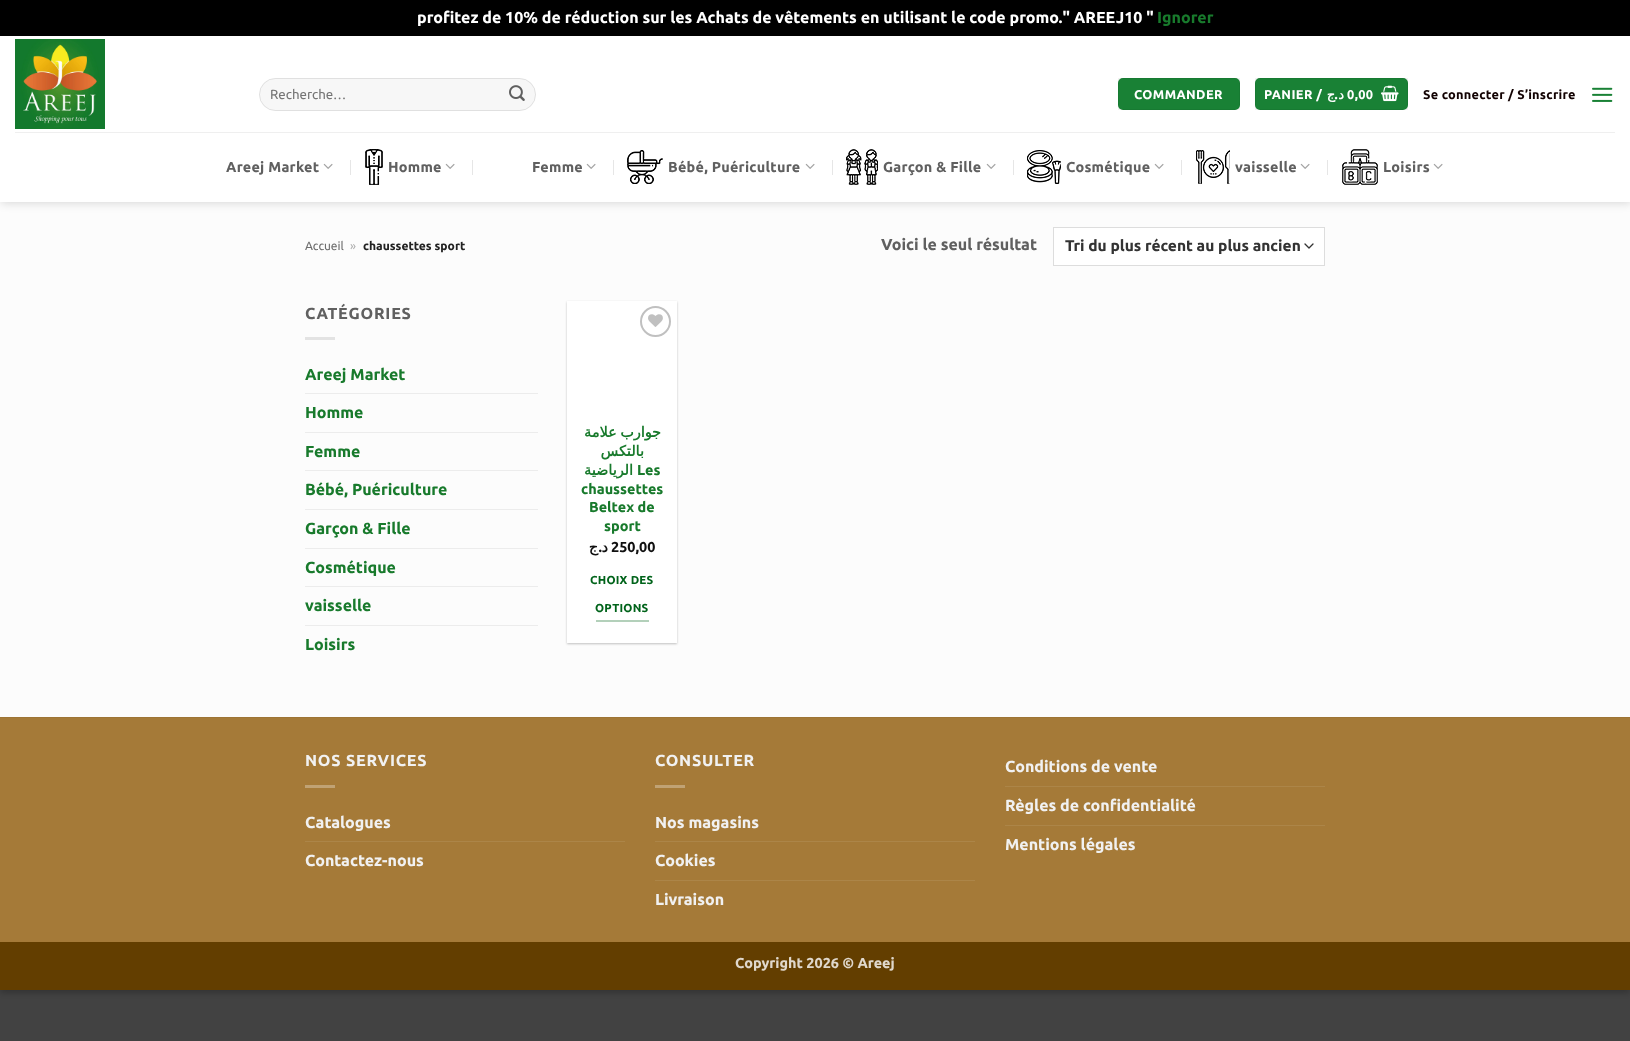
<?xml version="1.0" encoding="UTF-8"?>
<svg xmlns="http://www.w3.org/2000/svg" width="1630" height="1041">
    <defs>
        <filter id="blur1" x="-50%" y="-200%" width="200%" height="500%"><feGaussianBlur stdDeviation="3"/></filter>
        <filter id="blur2" x="-50%" y="-200%" width="200%" height="500%"><feGaussianBlur stdDeviation="5"/></filter>
        <filter id="blur3" x="-50%" y="-200%" width="200%" height="500%"><feGaussianBlur stdDeviation="1"/></filter>
    </defs>
    <rect width="100%" height="100%" fill="#424242"/>
    <rect x="0" y="3" width="1630" height="990" fill="#000000" fill-opacity="0.23" filter="url(#blur1)"/>
    <rect x="0" y="0" width="1630" height="36" fill="#000000"/>
    <text x="417" y="23" font-family="Ubuntu" font-size="16" font-weight="700" fill="#FFFFFF">profitez de 10% de réduction sur les Achats de vêtements en utilisant le code promo." AREEJ10 "</text>
    <text x="1157" y="23" font-family="Ubuntu" font-size="16" font-weight="700" fill="#187A2C">Ignorer</text>
    <rect x="0" y="202" width="1630" height="515" fill="#FCFCFC"/>
    <rect x="1" y="37" width="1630" height="166" fill="#000000" fill-opacity="0.15" filter="url(#blur2)"/>
    <rect x="0" y="36" width="1630" height="166" fill="#FFFFFF"/>
    <image x="15" y="39" width="90" height="90" href="img_01.png"/>
    <rect x="259" y="78" width="277" height="33" rx="16.5" fill="#F7F7F7"/>
    <rect x="259.5" y="78.5" width="276" height="32" rx="16" fill="none" stroke="#000000" stroke-opacity="0.09"/>
    <text x="270" y="99" font-family="Ubuntu" font-size="13.25" fill="#757575">Recherche…</text>
    <image x="509" y="85" width="16" height="16" href="img_02.png"/>
    <rect x="1118" y="78" width="122" height="32" rx="5" fill="#198135"/>
    <rect x="1118.5" y="78.5" width="121" height="31" fill="none" stroke="#000000" stroke-opacity="0.05"/>
    <text x="1134" y="99" font-family="Ubuntu" font-size="12.75" font-weight="700" letter-spacing="0.4" fill="#FFFFFF">COMMANDER</text>
    <rect x="1255" y="78" width="153" height="32" rx="5" fill="#198135"/>
    <rect x="1255.5" y="78.5" width="152" height="31" fill="none" stroke="#000000" stroke-opacity="0.05"/>
    <text x="1264" y="99" font-family="Ubuntu" font-size="12.75" font-weight="700" letter-spacing="0.4" fill="#FFFFFF">PANIER /</text>
    <text x="1335" y="99" font-family="DejaVu Sans" font-size="12.75" font-weight="700" letter-spacing="0.4" direction="rtl" fill="#FFFFFF">ج</text>
    <text x="1338" y="99" font-family="Ubuntu" font-size="12.75" font-weight="700" letter-spacing="0.4" direction="rtl" fill="#FFFFFF">.</text>
    <text x="1344" y="99" font-family="DejaVu Sans" font-size="12.75" font-weight="700" letter-spacing="0.4" direction="rtl" fill="#FFFFFF">د</text>
    <text x="1347" y="99" font-family="Ubuntu" font-size="12.75" font-weight="700" letter-spacing="0.4" fill="#FFFFFF">0,00</text>
    <image x="1381" y="85" width="18" height="17" href="img_03.png"/>
    <text x="1423" y="99" font-family="Ubuntu" font-size="12.75" font-weight="700" letter-spacing="0.25" fill="#120202">Se connecter / S’inscrire</text>
    <image x="1592" y="87" width="21" height="15" href="img_04.png"/>
    <rect x="15" y="132" width="1600" height="1" fill="#EFEFEF"/>
    <text x="226" y="172" font-family="Ubuntu" font-size="14.4" font-weight="700" letter-spacing="0.25" fill="#606060">Areej Market</text>
    <image x="323" y="163" width="10" height="6" href="img_05.png"/>
    <rect x="350" y="160" width="1" height="15" fill="#E6E6E6"/>
    <image x="365" y="149" width="18" height="36" href="img_06.png"/>
    <text x="388" y="172" font-family="Ubuntu" font-size="14.4" font-weight="700" letter-spacing="0.25" fill="#606060">Homme</text>
    <image x="445" y="163" width="10" height="6" href="img_05.png"/>
    <rect x="472" y="160" width="1" height="15" fill="#E6E6E6"/>
    <text x="532" y="172" font-family="Ubuntu" font-size="14.4" font-weight="700" letter-spacing="0.25" fill="#606060">Femme</text>
    <image x="586" y="163" width="10" height="6" href="img_05.png"/>
    <rect x="613" y="160" width="1" height="15" fill="#E6E6E6"/>
    <image x="627" y="150" width="36" height="34" href="img_07.png"/>
    <text x="668" y="172" font-family="Ubuntu" font-size="14.4" font-weight="700" letter-spacing="0.25" fill="#606060">Bébé, Puériculture</text>
    <image x="805" y="163" width="10" height="6" href="img_05.png"/>
    <rect x="832" y="160" width="1" height="15" fill="#E6E6E6"/>
    <image x="846" y="149" width="32" height="36" href="img_08.png"/>
    <text x="883" y="172" font-family="Ubuntu" font-size="14.4" font-weight="700" letter-spacing="0.25" fill="#606060">Garçon &amp; Fille</text>
    <image x="986" y="163" width="10" height="6" href="img_05.png"/>
    <rect x="1013" y="160" width="1" height="15" fill="#E6E6E6"/>
    <image x="1027" y="150" width="34" height="34" href="img_09.png"/>
    <text x="1066" y="172" font-family="Ubuntu" font-size="14.4" font-weight="700" letter-spacing="0.25" fill="#606060">Cosmétique</text>
    <image x="1154" y="163" width="10" height="6" href="img_05.png"/>
    <rect x="1181" y="160" width="1" height="15" fill="#E6E6E6"/>
    <image x="1196" y="150" width="34" height="34" href="img_10.png"/>
    <text x="1235" y="172" font-family="Ubuntu" font-size="14.4" font-weight="700" letter-spacing="0.25" fill="#606060">vaisselle</text>
    <image x="1300" y="163" width="10" height="6" href="img_05.png"/>
    <rect x="1327" y="160" width="1" height="15" fill="#E6E6E6"/>
    <image x="1342" y="149" width="36" height="36" href="img_11.png"/>
    <text x="1383" y="172" font-family="Ubuntu" font-size="14.4" font-weight="700" letter-spacing="0.25" fill="#606060">Loisirs</text>
    <image x="1433" y="163" width="10" height="6" href="img_05.png"/>
    <text x="305" y="250" font-family="Ubuntu" font-size="12" fill="#6E6E6E">Accueil</text>
    <text x="350" y="250" font-family="Ubuntu" font-size="12" fill="#B0B0B0">»</text>
    <text x="363" y="250" font-family="Ubuntu" font-size="12" font-weight="700" fill="#222222">chaussettes sport</text>
    <text x="881" y="250" font-family="Ubuntu" font-size="16" font-weight="700" fill="#606060">Voici le seul résultat</text>
    <rect x="1054" y="228" width="270" height="37" fill="#FFFFFF"/>
    <path d="M 1305 244 L 1309 248 L 1313 244" fill="none" stroke="#333333" stroke-width="1.3" stroke-linecap="round" stroke-linejoin="round"/>
    <rect x="1053.5" y="227.5" width="271" height="38" fill="none" stroke="#DDDDDD"/>
    <text x="1065" y="251" font-family="Ubuntu" font-size="15.5" font-weight="700" fill="#333333">Tri du plus récent au plus ancien</text>
    <text x="305" y="319" font-family="Ubuntu" font-size="16" font-weight="700" letter-spacing="0.75" fill="#606060">CATÉGORIES</text>
    <rect x="305" y="337" width="30" height="3" fill="#E3E3E3"/>
    <text x="305" y="380" font-family="Ubuntu" font-size="16" font-weight="700" fill="#187A2C">Areej Market</text>
    <rect x="305" y="393" width="233" height="1" fill="#ECECEC"/>
    <text x="305" y="418" font-family="Ubuntu" font-size="16" font-weight="700" fill="#187A2C">Homme</text>
    <rect x="305" y="432" width="233" height="1" fill="#ECECEC"/>
    <text x="305" y="457" font-family="Ubuntu" font-size="16" font-weight="700" fill="#187A2C">Femme</text>
    <rect x="305" y="470" width="233" height="1" fill="#ECECEC"/>
    <text x="305" y="495" font-family="Ubuntu" font-size="16" font-weight="700" fill="#187A2C">Bébé, Puériculture</text>
    <rect x="305" y="509" width="233" height="1" fill="#ECECEC"/>
    <text x="305" y="534" font-family="Ubuntu" font-size="16" font-weight="700" fill="#187A2C">Garçon &amp; Fille</text>
    <rect x="305" y="548" width="233" height="1" fill="#ECECEC"/>
    <text x="305" y="573" font-family="Ubuntu" font-size="16" font-weight="700" fill="#187A2C">Cosmétique</text>
    <rect x="305" y="586" width="233" height="1" fill="#ECECEC"/>
    <text x="305" y="611" font-family="Ubuntu" font-size="16" font-weight="700" fill="#187A2C">vaisselle</text>
    <rect x="305" y="625" width="233" height="1" fill="#ECECEC"/>
    <text x="305" y="650" font-family="Ubuntu" font-size="16" font-weight="700" fill="#187A2C">Loisirs</text>
    <rect x="567" y="302" width="110" height="342" fill="#000000" fill-opacity="0.24" filter="url(#blur3)"/>
    <rect x="567" y="301" width="110" height="342" fill="#FFFFFF"/>
    <circle cx="655.5" cy="321.5" r="14.5" fill="none" stroke="#C0C0C0" stroke-width="2"/>
    <image x="648" y="314" width="15" height="13" href="img_12.png"/>
    <text x="661" y="437" word-spacing="-1" font-family="DejaVu Sans" font-size="14.4" font-weight="700" direction="rtl" fill="#187A2C">جوارب علامة</text>
    <text x="644" y="456" font-family="DejaVu Sans" font-size="14.4" font-weight="700" direction="rtl" fill="#187A2C">بالتكس</text>
    <text x="633" y="475" font-family="DejaVu Sans" font-size="14.4" font-weight="700" direction="rtl" fill="#187A2C">الرياضية</text>
    <text x="637" y="475" font-family="Ubuntu" font-size="14.4" font-weight="700" fill="#187A2C">Les</text>
    <text x="581" y="494" font-family="Ubuntu" font-size="14.4" font-weight="700" fill="#187A2C">chaussettes</text>
    <text x="589" y="512" font-family="Ubuntu" font-size="14.4" font-weight="700" fill="#187A2C">Beltex de</text>
    <text x="604" y="531" font-family="Ubuntu" font-size="14.4" font-weight="700" fill="#187A2C">sport</text>
    <text x="598" y="552" font-family="DejaVu Sans" font-size="14.4" font-weight="700" direction="rtl" fill="#111111">ج</text>
    <text x="602" y="552" font-family="Ubuntu" font-size="14.4" font-weight="700" direction="rtl" fill="#111111">.</text>
    <text x="608" y="552" font-family="DejaVu Sans" font-size="14.4" font-weight="700" direction="rtl" fill="#111111">د</text>
    <text x="611" y="552" font-family="Ubuntu" font-size="14.4" font-weight="700" fill="#111111">250,00</text>
    <text x="590" y="584" font-family="Ubuntu" font-size="11.5" font-weight="700" letter-spacing="0.25" fill="#00631A">CHOIX DES</text>
    <text x="595" y="612" font-family="Ubuntu" font-size="11.5" font-weight="700" letter-spacing="0.25" fill="#00631A">OPTIONS</text>
    <rect x="596" y="620" width="53" height="2" fill="#B3D0BA"/>
    <rect x="0" y="718" width="1630" height="224" fill="#A57A38"/>
    <rect x="0" y="717" width="1630" height="1" fill="#9D7435"/>
    <text x="305" y="766" font-family="Ubuntu" font-size="16" font-weight="700" letter-spacing="0.75" fill="#F1F1F1">NOS SERVICES</text>
    <rect x="305" y="785" width="30" height="3" fill="#C0A274"/>
    <text x="305" y="828" font-family="Ubuntu" font-size="16" font-weight="700" fill="#F1F1F1">Catalogues</text>
    <rect x="305" y="841" width="320" height="1" fill="#AC8548"/>
    <text x="305" y="866" font-family="Ubuntu" font-size="16" font-weight="700" fill="#F1F1F1">Contactez-nous</text>
    <text x="655" y="766" font-family="Ubuntu" font-size="16" font-weight="700" letter-spacing="0.75" fill="#F1F1F1">CONSULTER</text>
    <rect x="655" y="785" width="30" height="3" fill="#C0A274"/>
    <text x="655" y="828" font-family="Ubuntu" font-size="16" font-weight="700" fill="#F1F1F1">Nos magasins</text>
    <rect x="655" y="841" width="320" height="1" fill="#AC8548"/>
    <text x="655" y="866" font-family="Ubuntu" font-size="16" font-weight="700" fill="#F1F1F1">Cookies</text>
    <rect x="655" y="880" width="320" height="1" fill="#AC8548"/>
    <text x="655" y="905" font-family="Ubuntu" font-size="16" font-weight="700" fill="#F1F1F1">Livraison</text>
    <text x="1005" y="772" font-family="Ubuntu" font-size="16" font-weight="700" fill="#F1F1F1">Conditions de vente</text>
    <rect x="1005" y="786" width="320" height="1" fill="#AC8548"/>
    <text x="1005" y="811" font-family="Ubuntu" font-size="16" font-weight="700" fill="#F1F1F1">Règles de confidentialité</text>
    <rect x="1005" y="825" width="320" height="1" fill="#AC8548"/>
    <text x="1005" y="850" font-family="Ubuntu" font-size="16" font-weight="700" fill="#F1F1F1">Mentions légales</text>
    <rect x="0" y="942" width="1630" height="48" fill="#633E00"/>
    <text x="735" y="968" font-family="Ubuntu" font-size="14.4" font-weight="700" fill="#E0D8CC">Copyright 2026 © Areej</text>
</svg>
